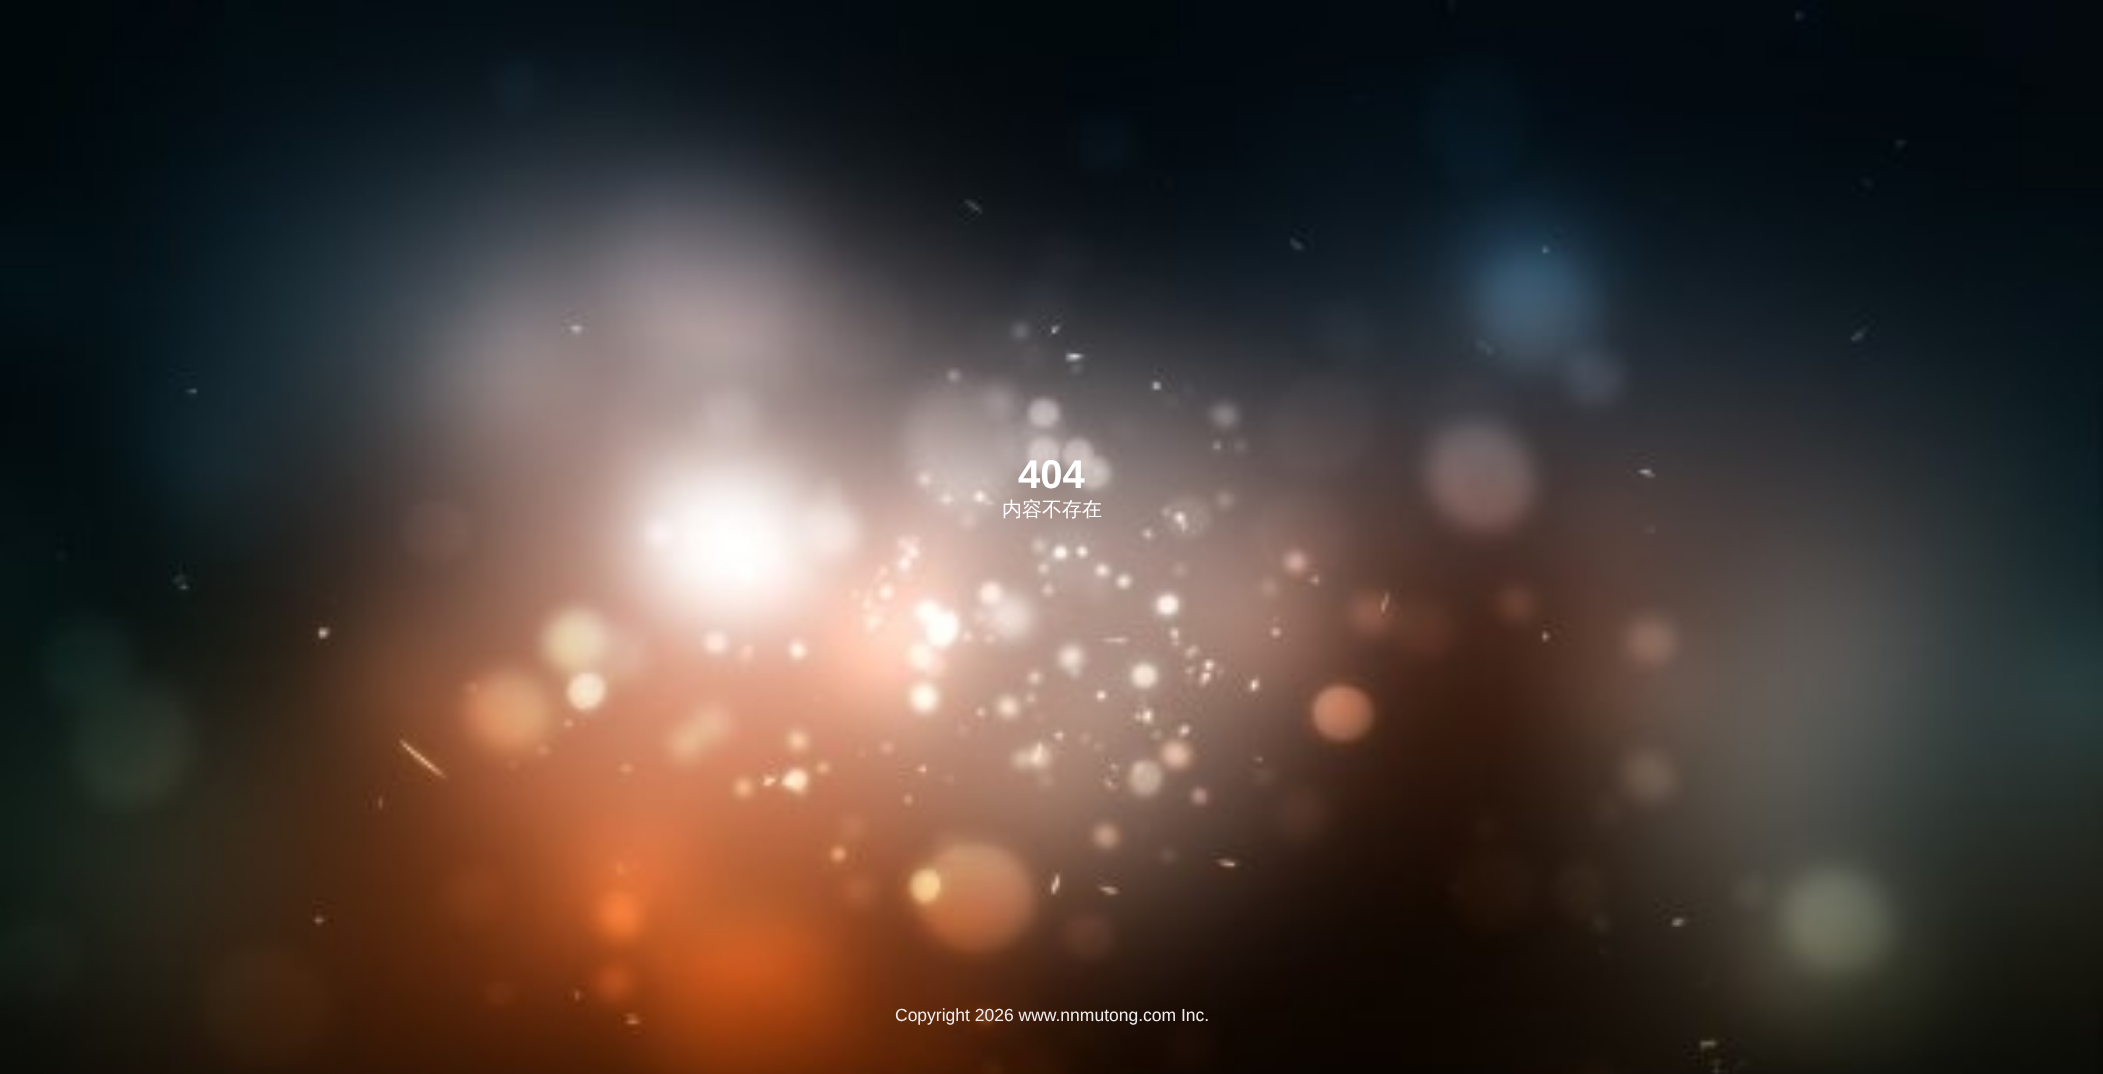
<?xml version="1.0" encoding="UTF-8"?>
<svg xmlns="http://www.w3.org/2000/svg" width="2103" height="1074">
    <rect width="100%" height="100%" fill="#FFFFFF"/>
    <image x="0" y="0" width="2103" height="1074" href="img_01.png"/>
    <text x="1018" y="488" font-family="Liberation Sans" font-size="40" font-weight="700" fill="#FFFFFF">404</text>
    <text x="1002" y="516" font-family="WenQuanYi Zen Hei" font-size="20" font-weight="500" fill="#FFFFFF">内容不存在</text>
    <text x="895" y="1021" font-family="Liberation Sans" font-size="17.5" fill="#EEEEEE">Copyright 2026 www.nnmutong.com Inc.</text>
</svg>
